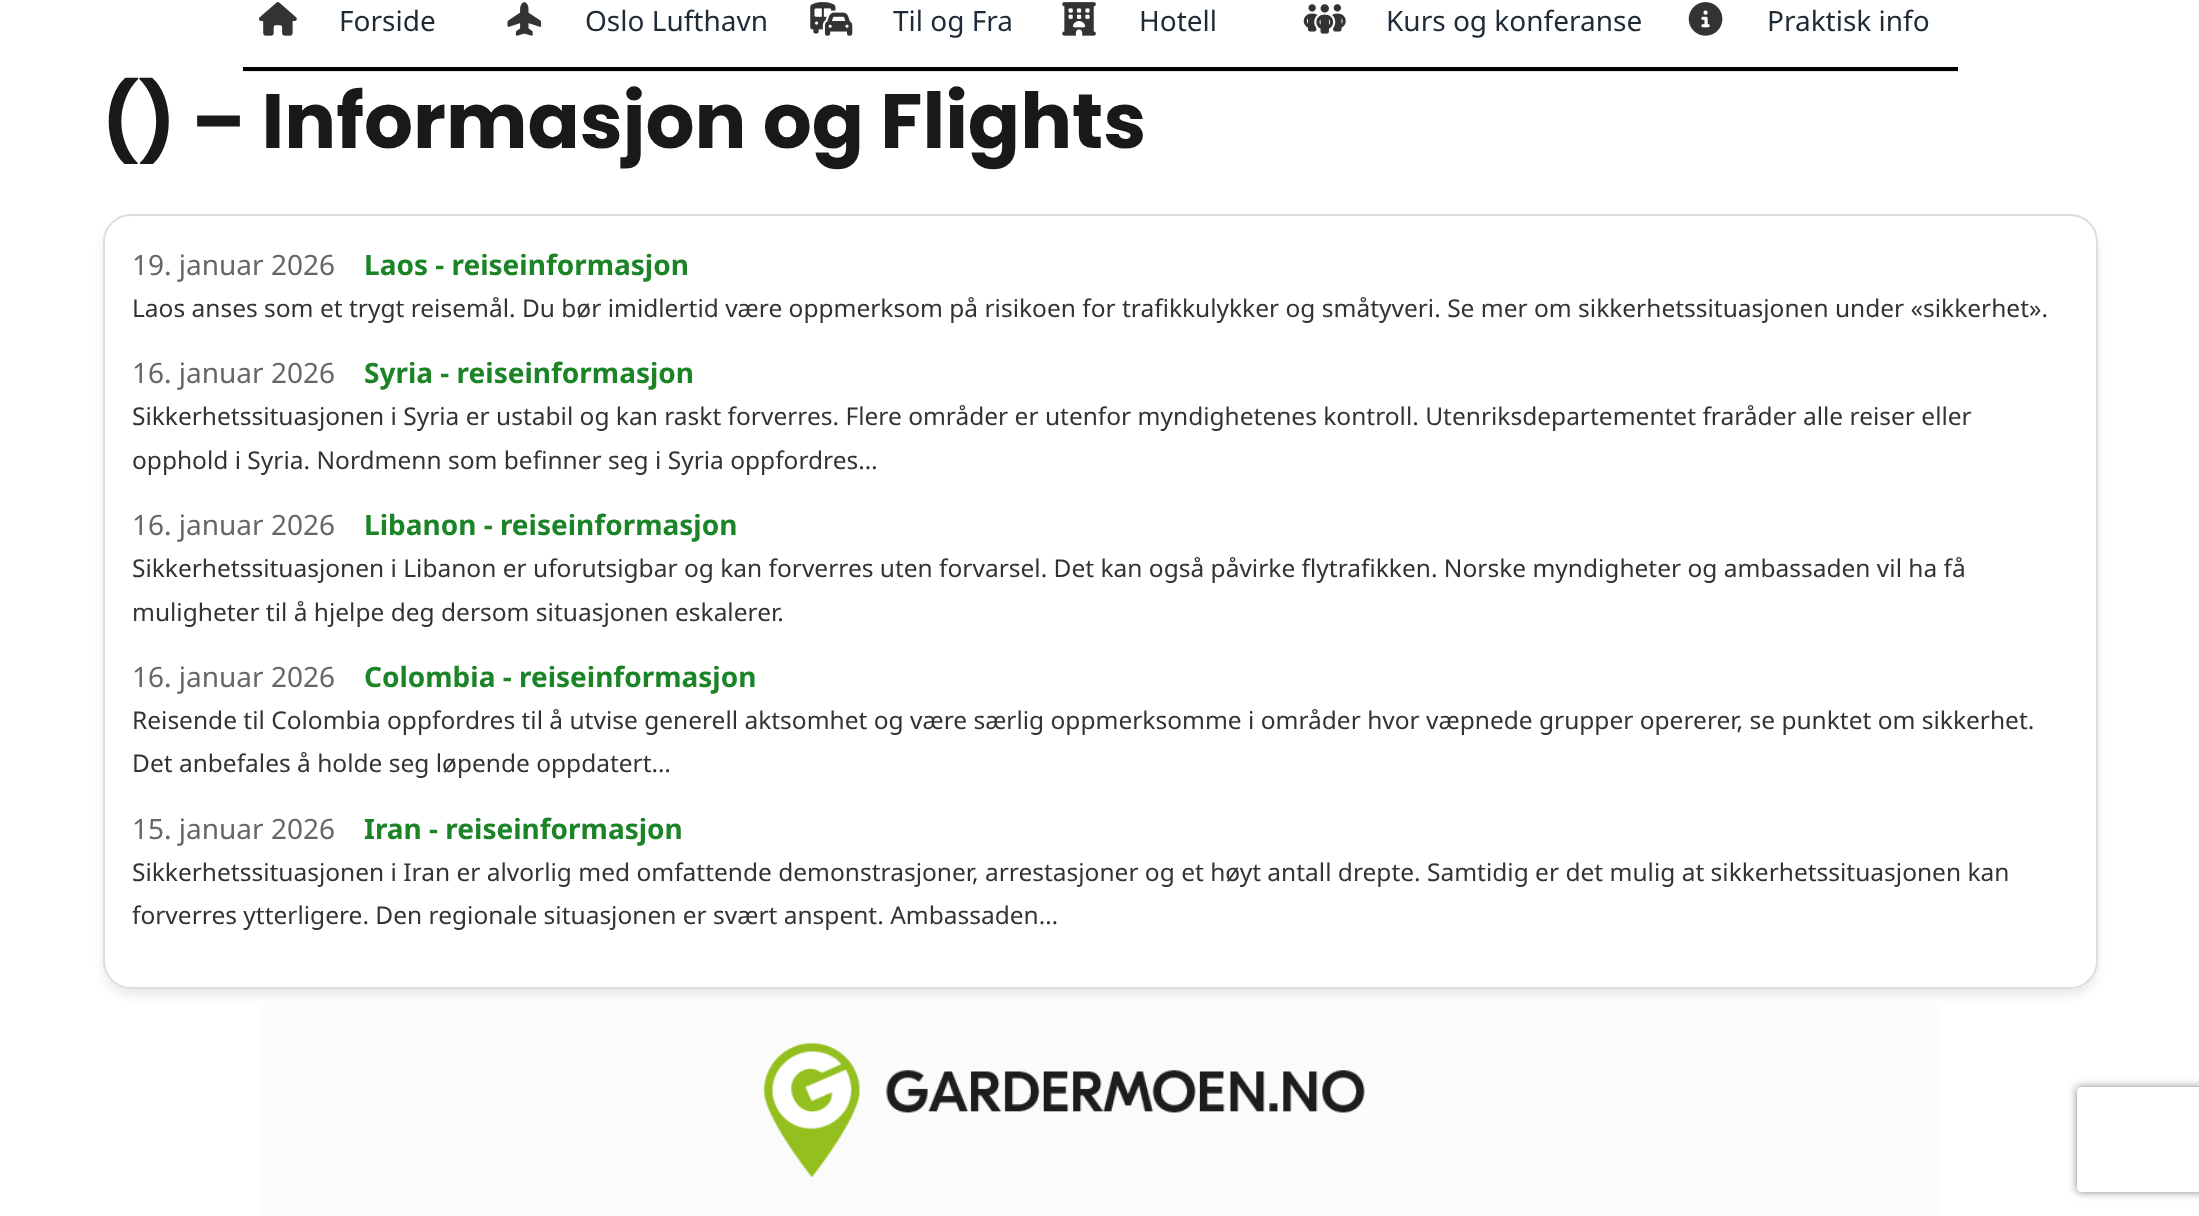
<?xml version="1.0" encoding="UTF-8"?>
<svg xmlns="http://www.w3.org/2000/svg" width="2199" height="1216">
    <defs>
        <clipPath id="clip1"><path d="M 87 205 H 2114 V 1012 H 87 Z M 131 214 H 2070 C 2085.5 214 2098 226.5 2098 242 V 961 C 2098 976.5 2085.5 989 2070 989 H 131 C 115.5 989 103 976.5 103 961 V 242 C 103 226.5 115.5 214 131 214 Z" clip-rule="evenodd"/></clipPath>
        <filter id="blur1" x="-50%" y="-200%" width="200%" height="500%"><feGaussianBlur stdDeviation="5"/></filter>
        <clipPath id="clip2"><path d="M 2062 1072 H 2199 V 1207 H 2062 Z M 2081 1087 H 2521 C 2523 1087 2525 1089 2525 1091 V 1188 C 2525 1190 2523 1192 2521 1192 H 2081 C 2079 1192 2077 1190 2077 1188 V 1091 C 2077 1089 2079 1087 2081 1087 Z" clip-rule="evenodd"/></clipPath>
        <filter id="blur2" x="-50%" y="-200%" width="200%" height="500%"><feGaussianBlur stdDeviation="4.5"/></filter>
    </defs>
    <rect width="100%" height="100%" fill="#FFFFFF"/>
    <rect x="243" y="71" width="1715" height="1" fill="#E5E7EB"/>
    <rect x="243" y="67" width="1715" height="4" fill="#000000"/>
    <image x="259" y="2" width="38" height="34" href="img_01.png"/>
    <text x="339" y="31" font-family="Noto Sans" font-size="28" fill="#1F2A37">Forside</text>
    <image x="507" y="2" width="35" height="34" href="img_02.png"/>
    <text x="585" y="31" font-family="Noto Sans" font-size="28" fill="#1F2A37">Oslo Lufthavn</text>
    <image x="810" y="2" width="43" height="34" href="img_03.png"/>
    <text x="893" y="31" font-family="Noto Sans" font-size="28" fill="#1F2A37">Til og Fra</text>
    <image x="1062" y="2" width="34" height="34" href="img_04.png"/>
    <text x="1139" y="31" font-family="Noto Sans" font-size="28" fill="#1F2A37">Hotell</text>
    <image x="1303" y="4" width="43" height="30" href="img_05.png"/>
    <text x="1386" y="31" font-family="Noto Sans" font-size="28" fill="#1F2A37">Kurs og konferanse</text>
    <image x="1688" y="2" width="35" height="34" href="img_06.png"/>
    <text x="1767" y="31" font-family="Noto Sans" font-size="28" fill="#1F2A37">Praktisk info</text>
    <text x="102" y="148" font-family="Poppins" font-size="77" font-weight="700" fill="#191919">() – Informasjon og Flights</text>
    <g clip-path="url(#clip1)">
        <rect x="103" y="221" width="1995" height="775" rx="28" fill="#000000" fill-opacity="0.08" filter="url(#blur1)"/>
    </g>
    <rect x="104" y="215" width="1993" height="773" rx="27" fill="none" stroke="#DDDDDD" stroke-width="2"/>
    <text x="132" y="275" font-family="Noto Sans" font-size="28" fill="#666666">19. januar 2026</text>
    <text x="364" y="275" font-family="Noto Sans" font-size="28" font-weight="700" fill="#1A8427">Laos - reiseinformasjon</text>
    <text x="132" y="317" font-family="Noto Sans" font-size="24.5" fill="#333333">Laos anses som et trygt reisemål. Du bør imidlertid være oppmerksom på risikoen for trafikkulykker og småtyveri. Se mer om sikkerhetssituasjonen under «sikkerhet».</text>
    <text x="132" y="383" font-family="Noto Sans" font-size="28" fill="#666666">16. januar 2026</text>
    <text x="364" y="383" font-family="Noto Sans" font-size="28" font-weight="700" fill="#1A8427">Syria - reiseinformasjon</text>
    <text font-family="Noto Sans" font-size="24.5" fill="#333333">
        <tspan x="132" y="425">Sikkerhetssituasjonen i Syria er ustabil og kan raskt forverres. Flere områder er utenfor myndighetenes kontroll. Utenriksdepartementet fraråder alle reiser eller</tspan>
        <tspan x="132" y="469">opphold i Syria. Nordmenn som befinner seg i Syria oppfordres…</tspan>
    </text>
    <text x="132" y="535" font-family="Noto Sans" font-size="28" fill="#666666">16. januar 2026</text>
    <text x="364" y="535" font-family="Noto Sans" font-size="28" font-weight="700" fill="#1A8427">Libanon - reiseinformasjon</text>
    <text font-family="Noto Sans" font-size="24.5" fill="#333333">
        <tspan x="132" y="577">Sikkerhetssituasjonen i Libanon er uforutsigbar og kan forverres uten forvarsel. Det kan også påvirke flytrafikken. Norske myndigheter og ambassaden vil ha få</tspan>
        <tspan x="132" y="621">muligheter til å hjelpe deg dersom situasjonen eskalerer.</tspan>
    </text>
    <text x="132" y="687" font-family="Noto Sans" font-size="28" fill="#666666">16. januar 2026</text>
    <text x="364" y="687" font-family="Noto Sans" font-size="28" font-weight="700" fill="#1A8427">Colombia - reiseinformasjon</text>
    <text font-family="Noto Sans" font-size="24.5" fill="#333333">
        <tspan x="132" y="729">Reisende til Colombia oppfordres til å utvise generell aktsomhet og være særlig oppmerksomme i områder hvor væpnede grupper opererer, se punktet om sikkerhet.</tspan>
        <tspan x="132" y="772">Det anbefales å holde seg løpende oppdatert…</tspan>
    </text>
    <text x="132" y="839" font-family="Noto Sans" font-size="28" fill="#666666">15. januar 2026</text>
    <text x="364" y="839" font-family="Noto Sans" font-size="28" font-weight="700" fill="#1A8427">Iran - reiseinformasjon</text>
    <text font-family="Noto Sans" font-size="24.5" fill="#333333">
        <tspan x="132" y="881">Sikkerhetssituasjonen i Iran er alvorlig med omfattende demonstrasjoner, arrestasjoner og et høyt antall drepte. Samtidig er det mulig at sikkerhetssituasjonen kan</tspan>
        <tspan x="132" y="924">forverres ytterligere. Den regionale situasjonen er svært anspent. Ambassaden…</tspan>
    </text>
    <rect x="261" y="1005" width="1680" height="211" fill="#FBFBFB"/>
    <image x="763" y="1043" width="602" height="135" href="img_07.png"/>
    <g clip-path="url(#clip2)">
        <rect x="2077" y="1087" width="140" height="105" rx="4" fill="#808080" filter="url(#blur2)"/>
    </g>
</svg>
